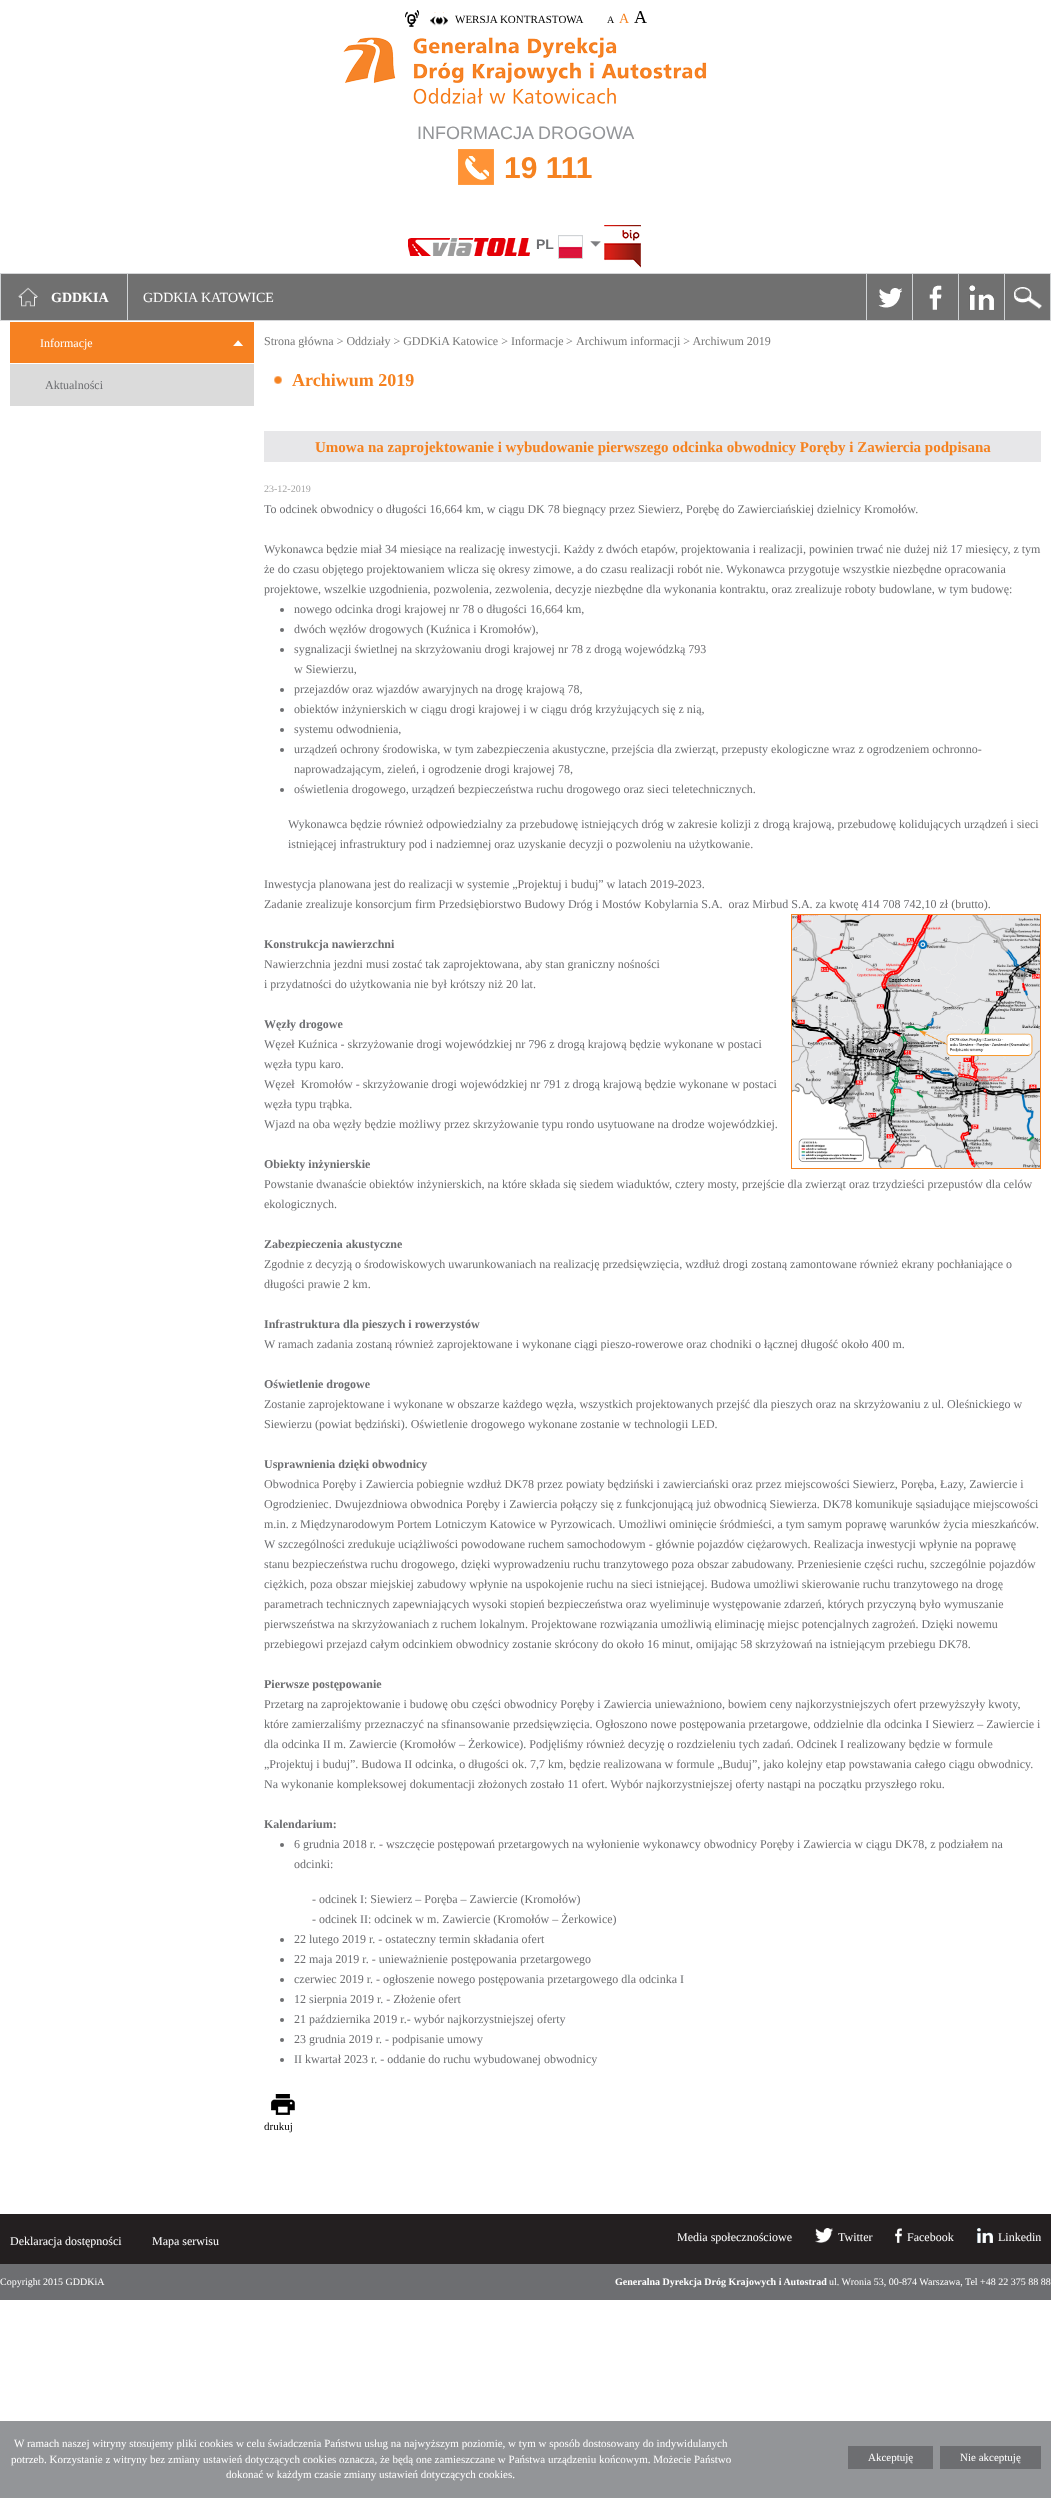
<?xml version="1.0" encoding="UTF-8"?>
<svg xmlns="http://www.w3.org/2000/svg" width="1051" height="2498">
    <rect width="100%" height="100%" fill="#FFFFFF"/>
    <image x="405" y="10" width="15" height="17" href="img_01.png"/>
    <image x="430" y="12" width="18" height="14" href="img_02.png"/>
    <text x="455" y="23" font-family="Liberation Serif" font-size="11" fill="#000000">WERSJA KONTRASTOWA</text>
    <text x="607" y="23" font-family="Liberation Serif" font-size="10" fill="#000000">A</text>
    <text x="619" y="23" font-family="Liberation Serif" font-size="14" fill="#F58220">A</text>
    <text x="634" y="23" font-family="Liberation Serif" font-size="18" fill="#000000">A</text>
    <image x="343" y="37" width="364" height="67" href="img_03.png"/>
    <text x="417" y="139" font-family="Liberation Sans" font-size="18" fill="#939598">INFORMACJA DROGOWA</text>
    <image x="458" y="149" width="36" height="36" href="img_04.png"/>
    <text x="504" y="178" font-family="Liberation Sans" font-size="30" font-weight="700" fill="#F58220">19 111</text>
    <image x="408" y="238" width="122" height="18" href="img_05.png"/>
    <image x="590" y="241" width="11" height="6" href="img_06.png"/>
    <text x="536" y="249" font-family="Liberation Sans" font-size="14" font-weight="700" fill="#6D6E71">PL</text>
    <rect x="558.5" y="235.5" width="24" height="23" fill="none" stroke="#D0D3D5"/>
    <image x="559" y="236" width="23" height="22" href="img_07.png"/>
    <image x="604" y="225" width="37" height="43" href="img_08.png"/>
    <rect x="1" y="274" width="1049" height="46" fill="#707070"/>
    <rect x="0" y="273" width="1051" height="1" fill="#D5D6D8"/>
    <rect x="0" y="320" width="1051" height="1" fill="#D5D6D8"/>
    <rect x="0" y="274" width="1" height="46" fill="#D0D3D5"/>
    <image x="18" y="287" width="20" height="20" href="img_09.png"/>
    <text x="51" y="302" font-family="Liberation Serif" font-size="14" font-weight="700" fill="#FFFFFF">GDDKIA</text>
    <rect x="127" y="274" width="1" height="46" fill="#D0D3D5"/>
    <text x="143" y="302" font-family="Liberation Serif" font-size="14" fill="#FFFFFF">GDDKIA KATOWICE</text>
    <rect x="1050" y="274" width="1" height="46" fill="#D0D3D5"/>
    <image x="878" y="288" width="24" height="20" href="img_10.png"/>
    <rect x="866" y="274" width="1" height="46" fill="#D0D3D5"/>
    <image x="929" y="285" width="13" height="25" href="img_11.png"/>
    <rect x="912" y="274" width="1" height="46" fill="#D0D3D5"/>
    <image x="969" y="285" width="25" height="25" href="img_12.png"/>
    <rect x="958" y="274" width="1" height="46" fill="#D0D3D5"/>
    <image x="1014" y="287" width="28" height="22" href="img_13.png"/>
    <rect x="1004" y="274" width="1" height="46" fill="#D0D3D5"/>
    <rect x="10" y="322" width="244" height="41" fill="#F68121"/>
    <image x="233" y="340" width="10" height="6" href="img_14.png"/>
    <text x="40" y="347" font-family="Liberation Serif" font-size="12" fill="#FFFFFF">Informacje</text>
    <rect x="10" y="364" width="244" height="42" fill="#DBDBDB"/>
    <text x="45" y="389" font-family="Liberation Serif" font-size="12" fill="#6D6E71">Aktualności</text>
    <text x="264" y="345" font-family="Liberation Serif" font-size="12" fill="#787878">Strona główna &gt; Oddziały &gt; GDDKiA Katowice &gt; Informacje</text>
    <text x="566" y="345" font-family="Liberation Serif" font-size="12" fill="#787878">&gt;</text>
    <text x="576" y="345" font-family="Liberation Serif" font-size="12" fill="#787878">Archiwum informacji &gt; Archiwum 2019</text>
    <image x="274" y="376" width="8" height="8" href="img_15.png"/>
    <text x="292" y="386" font-family="Liberation Serif" font-size="18" font-weight="700" fill="#F58220">Archiwum 2019</text>
    <rect x="264" y="431" width="777" height="31" fill="#E7E7E9"/>
    <text x="315" y="452" font-family="Liberation Serif" font-size="15" font-weight="700" fill="#F58220">Umowa na zaprojektowanie i wybudowanie pierwszego odcinka obwodnicy Poręby i Zawiercia podpisana</text>
    <text x="264" y="492" font-family="Liberation Serif" font-size="10" fill="#A5A5A5">23-12-2019</text>
    <text x="264" y="513" font-family="Liberation Serif" font-size="12" fill="#6D6E71">To odcinek obwodnicy o długości 16,664 km, w ciągu DK 78 biegnący przez Siewierz, Porębę do Zawierciańskiej dzielnicy Kromołów.</text>
    <text font-family="Liberation Serif" font-size="12" fill="#6D6E71">
        <tspan x="264" y="553">Wykonawca będzie miał 34 miesiące na realizację inwestycji. Każdy z dwóch etapów, projektowania i realizacji, powinien trwać nie dużej niż 17 miesięcy, z tym</tspan>
        <tspan x="264" y="573">że do czasu objętego projektowaniem wlicza się okresy zimowe, a do czasu realizacji robót nie. Wykonawca przygotuje wszystkie niezbędne opracowania</tspan>
        <tspan x="264" y="593">projektowe, wszelkie uzgodnienia, pozwolenia, zezwolenia, decyzje niezbędne dla wykonania kontraktu, oraz zrealizuje roboty budowlane, w tym budowę:</tspan>
    </text>
    <circle cx="282" cy="610" r="2" fill="#6D6E71"/>
    <text x="294" y="613" font-family="Liberation Serif" font-size="12" fill="#6D6E71">nowego odcinka drogi krajowej nr 78 o długości 16,664 km,</text>
    <circle cx="282" cy="630" r="2" fill="#6D6E71"/>
    <text x="294" y="633" font-family="Liberation Serif" font-size="12" fill="#6D6E71">dwóch węzłów drogowych (Kuźnica i Kromołów),</text>
    <circle cx="282" cy="650" r="2" fill="#6D6E71"/>
    <text font-family="Liberation Serif" font-size="12" fill="#6D6E71">
        <tspan x="294" y="653">sygnalizacji świetlnej na skrzyżowaniu drogi krajowej nr 78 z drogą wojewódzką 793</tspan>
        <tspan x="294" y="673">w Siewierzu,</tspan>
    </text>
    <circle cx="282" cy="690" r="2" fill="#6D6E71"/>
    <text x="294" y="693" font-family="Liberation Serif" font-size="12" fill="#6D6E71">przejazdów oraz wjazdów awaryjnych na drogę krajową 78,</text>
    <circle cx="282" cy="710" r="2" fill="#6D6E71"/>
    <text x="294" y="713" font-family="Liberation Serif" font-size="12" fill="#6D6E71">obiektów inżynierskich w ciągu drogi krajowej i w ciągu dróg krzyżujących się z nią,</text>
    <circle cx="282" cy="730" r="2" fill="#6D6E71"/>
    <text x="294" y="733" font-family="Liberation Serif" font-size="12" fill="#6D6E71">systemu odwodnienia,</text>
    <circle cx="282" cy="750" r="2" fill="#6D6E71"/>
    <text font-family="Liberation Serif" font-size="12" fill="#6D6E71">
        <tspan x="294" y="753">urządzeń ochrony środowiska, w tym zabezpieczenia akustyczne, przejścia dla zwierząt, przepusty ekologiczne wraz z ogrodzeniem ochronno-</tspan>
        <tspan x="294" y="773">naprowadzającym, zieleń, i ogrodzenie drogi krajowej 78,</tspan>
    </text>
    <circle cx="282" cy="790" r="2" fill="#6D6E71"/>
    <text x="294" y="793" font-family="Liberation Serif" font-size="12" fill="#6D6E71">oświetlenia drogowego, urządzeń bezpieczeństwa ruchu drogowego oraz sieci teletechnicznych.</text>
    <text font-family="Liberation Serif" font-size="12" fill="#6D6E71">
        <tspan x="288" y="828">Wykonawca będzie również odpowiedzialny za przebudowę istniejących dróg w zakresie kolizji z drogą krajową, przebudowę kolidujących urządzeń i sieci</tspan>
        <tspan x="288" y="848">istniejącej infrastruktury pod i nadziemnej oraz uzyskanie decyzji o pozwoleniu na użytkowanie.</tspan>
    </text>
    <text font-family="Liberation Serif" font-size="12" fill="#6D6E71" xml:space="preserve"><tspan x="264" y="888">Inwestycja planowana jest do realizacji w systemie „Projektuj i buduj” w latach 2019-2023.</tspan><tspan x="264" y="908">Zadanie zrealizuje konsorcjum firm Przedsiębiorstwo Budowy Dróg i Mostów Kobylarnia S.A.  oraz Mirbud S.A. za kwotę 414 708 742,10 zł (brutto).</tspan></text>
    <rect x="791.5" y="914.5" width="249" height="254" fill="none" stroke="#F58220"/>
    <image x="792" y="915" width="248" height="253" href="img_16.png"/>
    <text x="264" y="948" font-family="Liberation Serif" font-size="12" font-weight="700" fill="#6D6E71">Konstrukcja nawierzchni</text>
    <text font-family="Liberation Serif" font-size="12" fill="#6D6E71">
        <tspan x="264" y="968">Nawierzchnia jezdni musi zostać tak zaprojektowana, aby stan graniczny nośności</tspan>
        <tspan x="264" y="988">i przydatności do użytkowania nie był krótszy niż 20 lat.</tspan>
    </text>
    <text x="264" y="1028" font-family="Liberation Serif" font-size="12" font-weight="700" fill="#6D6E71">Węzły drogowe</text>
    <text font-family="Liberation Serif" font-size="12" fill="#6D6E71" xml:space="preserve"><tspan x="264" y="1048">Węzeł Kuźnica - skrzyżowanie drogi wojewódzkiej nr 796 z drogą krajową będzie wykonane w postaci</tspan><tspan x="264" y="1068">węzła typu karo.</tspan><tspan x="264" y="1088">Węzeł  Kromołów - skrzyżowanie drogi wojewódzkiej nr 791 z drogą krajową będzie wykonane w postaci</tspan><tspan x="264" y="1108">węzła typu trąbka.</tspan><tspan x="264" y="1128">Wjazd na oba węzły będzie możliwy przez skrzyżowanie typu rondo usytuowane na drodze wojewódzkiej.</tspan></text>
    <text x="264" y="1168" font-family="Liberation Serif" font-size="12" font-weight="700" fill="#6D6E71">Obiekty inżynierskie</text>
    <text font-family="Liberation Serif" font-size="12" fill="#6D6E71">
        <tspan x="264" y="1188">Powstanie dwanaście obiektów inżynierskich, na które składa się siedem wiaduktów, cztery mosty, przejście dla zwierząt oraz trzydzieści przepustów dla celów</tspan>
        <tspan x="264" y="1208">ekologicznych.</tspan>
    </text>
    <text x="264" y="1248" font-family="Liberation Serif" font-size="12" font-weight="700" fill="#6D6E71">Zabezpieczenia akustyczne</text>
    <text font-family="Liberation Serif" font-size="12" fill="#6D6E71">
        <tspan x="264" y="1268">Zgodnie z decyzją o środowiskowych uwarunkowaniach na realizację przedsięwzięcia, wzdłuż drogi zostaną zamontowane również ekrany pochłaniające o</tspan>
        <tspan x="264" y="1288">długości prawie 2 km.</tspan>
    </text>
    <text x="264" y="1328" font-family="Liberation Serif" font-size="12" font-weight="700" fill="#6D6E71">Infrastruktura dla pieszych i rowerzystów</text>
    <text x="264" y="1348" font-family="Liberation Serif" font-size="12" fill="#6D6E71">W ramach zadania zostaną również zaprojektowane i wykonane ciągi pieszo-rowerowe oraz chodniki o łącznej długość około 400 m.</text>
    <text x="264" y="1388" font-family="Liberation Serif" font-size="12" font-weight="700" fill="#6D6E71">Oświetlenie drogowe</text>
    <text font-family="Liberation Serif" font-size="12" fill="#6D6E71">
        <tspan x="264" y="1408">Zostanie zaprojektowane i wykonane w obszarze każdego węzła, wszystkich projektowanych przejść dla pieszych oraz na skrzyżowaniu z ul. Oleśnickiego w</tspan>
        <tspan x="264" y="1428">Siewierzu (powiat będziński). Oświetlenie drogowego wykonane zostanie w technologii LED.</tspan>
    </text>
    <text x="264" y="1468" font-family="Liberation Serif" font-size="12" font-weight="700" fill="#6D6E71">Usprawnienia dzięki obwodnicy</text>
    <text font-family="Liberation Serif" font-size="12" fill="#6D6E71">
        <tspan x="264" y="1488">Obwodnica Poręby i Zawiercia pobiegnie wzdłuż DK78 przez powiaty będziński i zawierciański oraz przez miejscowości Siewierz, Poręba, Łazy, Zawiercie i</tspan>
        <tspan x="264" y="1508">Ogrodzieniec. Dwujezdniowa obwodnica Poręby i Zawiercia połączy się z funkcjonującą już obwodnicą Siewierza. DK78 komunikuje sąsiadujące miejscowości</tspan>
        <tspan x="264" y="1528">m.in. z Międzynarodowym Portem Lotniczym Katowice w Pyrzowicach. Umożliwi ominięcie śródmieści, a tym samym poprawę warunków życia mieszkańców.</tspan>
        <tspan x="264" y="1548">W szczególności zredukuje uciążliwości powodowane ruchem samochodowym - głównie pojazdów ciężarowych. Realizacja inwestycji wpłynie na poprawę</tspan>
        <tspan x="264" y="1568">stanu bezpieczeństwa ruchu drogowego, dzięki wyprowadzeniu ruchu tranzytowego poza obszar zabudowany. Przeniesienie części ruchu, szczególnie pojazdów</tspan>
        <tspan x="264" y="1588">ciężkich, poza obszar miejskiej zabudowy wpłynie na uspokojenie ruchu na sieci istniejącej. Budowa umożliwi skierowanie ruchu tranzytowego na drogę</tspan>
        <tspan x="264" y="1608">parametrach technicznych zapewniających wysoki stopień bezpieczeństwa oraz wyeliminuje występowanie zdarzeń, których przyczyną było wymuszanie</tspan>
        <tspan x="264" y="1628">pierwszeństwa na skrzyżowaniach z ruchem lokalnym. Projektowane rozwiązania umożliwią eliminację miejsc potencjalnych zagrożeń. Dzięki nowemu</tspan>
        <tspan x="264" y="1648">przebiegowi przejazd całym odcinkiem obwodnicy zostanie skrócony do około 16 minut, omijając 58 skrzyżowań na istniejącym przebiegu DK78.</tspan>
    </text>
    <text x="264" y="1688" font-family="Liberation Serif" font-size="12" font-weight="700" fill="#6D6E71">Pierwsze postępowanie</text>
    <text font-family="Liberation Serif" font-size="12" fill="#6D6E71">
        <tspan x="264" y="1708">Przetarg na zaprojektowanie i budowę obu części obwodnicy Poręby i Zawiercia unieważniono, bowiem ceny najkorzystniejszych ofert przewyższyły kwoty,</tspan>
        <tspan x="264" y="1728">które zamierzaliśmy przeznaczyć na sfinansowanie przedsięwzięcia. Ogłoszono nowe postępowania przetargowe, oddzielnie dla odcinka I Siewierz – Zawiercie i</tspan>
        <tspan x="264" y="1748">dla odcinka II m. Zawiercie (Kromołów – Żerkowice). Podjęliśmy również decyzję o rozdzieleniu tych zadań. Odcinek I realizowany będzie w formule</tspan>
        <tspan x="264" y="1768">„Projektuj i buduj”. Budowa II odcinka, o długości ok. 7,7 km, będzie realizowana w formule „Buduj”, jako kolejny etap powstawania całego ciągu obwodnicy.</tspan>
        <tspan x="264" y="1788">Na wykonanie kompleksowej dokumentacji złożonych zostało 11 ofert. Wybór najkorzystniejszej oferty nastąpi na początku przyszłego roku.</tspan>
    </text>
    <text x="264" y="1828" font-family="Liberation Serif" font-size="12" font-weight="700" fill="#6D6E71">Kalendarium:</text>
    <circle cx="282" cy="1845" r="2" fill="#6D6E71"/>
    <text font-family="Liberation Serif" font-size="12" fill="#6D6E71">
        <tspan x="294" y="1848">6 grudnia 2018 r. - wszczęcie postępowań przetargowych na wyłonienie wykonawcy obwodnicy Poręby i Zawiercia w ciągu DK78, z podziałem na</tspan>
        <tspan x="294" y="1868">odcinki:</tspan>
    </text>
    <text font-family="Liberation Serif" font-size="12" fill="#6D6E71">
        <tspan x="312" y="1903">- odcinek I: Siewierz – Poręba – Zawiercie (Kromołów)</tspan>
        <tspan x="312" y="1923">- odcinek II: odcinek w m. Zawiercie (Kromołów – Żerkowice)</tspan>
    </text>
    <circle cx="282" cy="1940" r="2" fill="#6D6E71"/>
    <text x="294" y="1943" font-family="Liberation Serif" font-size="12" fill="#6D6E71">22 lutego 2019 r. - ostateczny termin składania ofert</text>
    <circle cx="282" cy="1960" r="2" fill="#6D6E71"/>
    <text x="294" y="1963" font-family="Liberation Serif" font-size="12" fill="#6D6E71">22 maja 2019 r. - unieważnienie postępowania przetargowego</text>
    <circle cx="282" cy="1980" r="2" fill="#6D6E71"/>
    <text x="294" y="1983" font-family="Liberation Serif" font-size="12" fill="#6D6E71">czerwiec 2019 r. - ogłoszenie nowego postępowania przetargowego dla odcinka I</text>
    <circle cx="282" cy="2000" r="2" fill="#6D6E71"/>
    <text x="294" y="2003" font-family="Liberation Serif" font-size="12" fill="#6D6E71">12 sierpnia 2019 r. - Złożenie ofert</text>
    <circle cx="282" cy="2020" r="2" fill="#6D6E71"/>
    <text x="294" y="2023" font-family="Liberation Serif" font-size="12" fill="#6D6E71">21 października 2019 r.- wybór najkorzystniejszej oferty</text>
    <circle cx="282" cy="2040" r="2" fill="#6D6E71"/>
    <text x="294" y="2043" font-family="Liberation Serif" font-size="12" fill="#6D6E71">23 grudnia 2019 r. - podpisanie umowy</text>
    <circle cx="282" cy="2060" r="2" fill="#6D6E71"/>
    <text x="294" y="2063" font-family="Liberation Serif" font-size="12" fill="#6D6E71">II kwartał 2023 r. - oddanie do ruchu wybudowanej obwodnicy</text>
    <image x="271" y="2094" width="24" height="21" href="img_17.png"/>
    <text x="264" y="2130" font-family="Liberation Serif" font-size="11" fill="#000000">drukuj</text>
    <rect x="0" y="2214" width="1051" height="50" fill="#231F20"/>
    <text x="10" y="2245" font-family="Liberation Serif" font-size="12" fill="#FFFFFF">Deklaracja dostępności</text>
    <text x="152" y="2245" font-family="Liberation Serif" font-size="12" fill="#FFFFFF">Mapa serwisu</text>
    <text x="677" y="2241" font-family="Liberation Serif" font-size="12" fill="#FFFFFF">Media społecznościowe</text>
    <image x="815" y="2228" width="18" height="15" href="img_18.png"/>
    <text x="838" y="2241" font-family="Liberation Serif" font-size="12" fill="#FFFFFF">Twitter</text>
    <image x="895" y="2228" width="7" height="15" href="img_19.png"/>
    <text x="907" y="2241" font-family="Liberation Serif" font-size="12" fill="#FFFFFF">Facebook</text>
    <image x="977" y="2228" width="16" height="15" href="img_20.png"/>
    <text x="998" y="2241" font-family="Liberation Serif" font-size="12" fill="#FFFFFF">Linkedin</text>
    <rect x="0" y="2264" width="1051" height="36" fill="#6D6E71"/>
    <text x="0" y="2285" font-family="Liberation Serif" font-size="10" fill="#FFFFFF">Copyright 2015 GDDKiA</text>
    <text x="615" y="2285" font-family="Liberation Serif" font-size="10" font-weight="700" fill="#FFFFFF">Generalna Dyrekcja Dróg Krajowych i Autostrad</text>
    <text x="829" y="2285" font-family="Liberation Serif" font-size="10" fill="#FFFFFF">ul. Wronia 53, 00-874 Warszawa, Tel +48 22 375 88 88</text>
    <rect x="0" y="2421" width="1051" height="77" fill="#939598"/>
    <text x="14" y="2447" font-family="Liberation Serif" font-size="11" fill="#FFFFFF">W ramach naszej witryny stosujemy pliki cookies w celu świadczenia Państwu usług na najwyższym poziomie, w tym w sposób dostosowany do indywidulanych</text>
    <text x="11" y="2463" font-family="Liberation Serif" font-size="11" fill="#FFFFFF">potrzeb. Korzystanie z witryny bez zmiany ustawień dotyczących cookies oznacza, że będą one zamieszczane w Państwa urządzeniu końcowym. Możecie Państwo</text>
    <text x="226" y="2478" font-family="Liberation Serif" font-size="11" fill="#FFFFFF">dokonać w każdym czasie zmiany ustawień dotyczących cookies.</text>
    <rect x="848" y="2446" width="85" height="23" fill="#6D6E71"/>
    <text x="868" y="2461" font-family="Liberation Serif" font-size="11" fill="#FFFFFF">Akceptuję</text>
    <rect x="940" y="2446" width="101" height="23" fill="#6D6E71"/>
    <text x="960" y="2461" font-family="Liberation Serif" font-size="11" fill="#FFFFFF">Nie akceptuję</text>
</svg>
